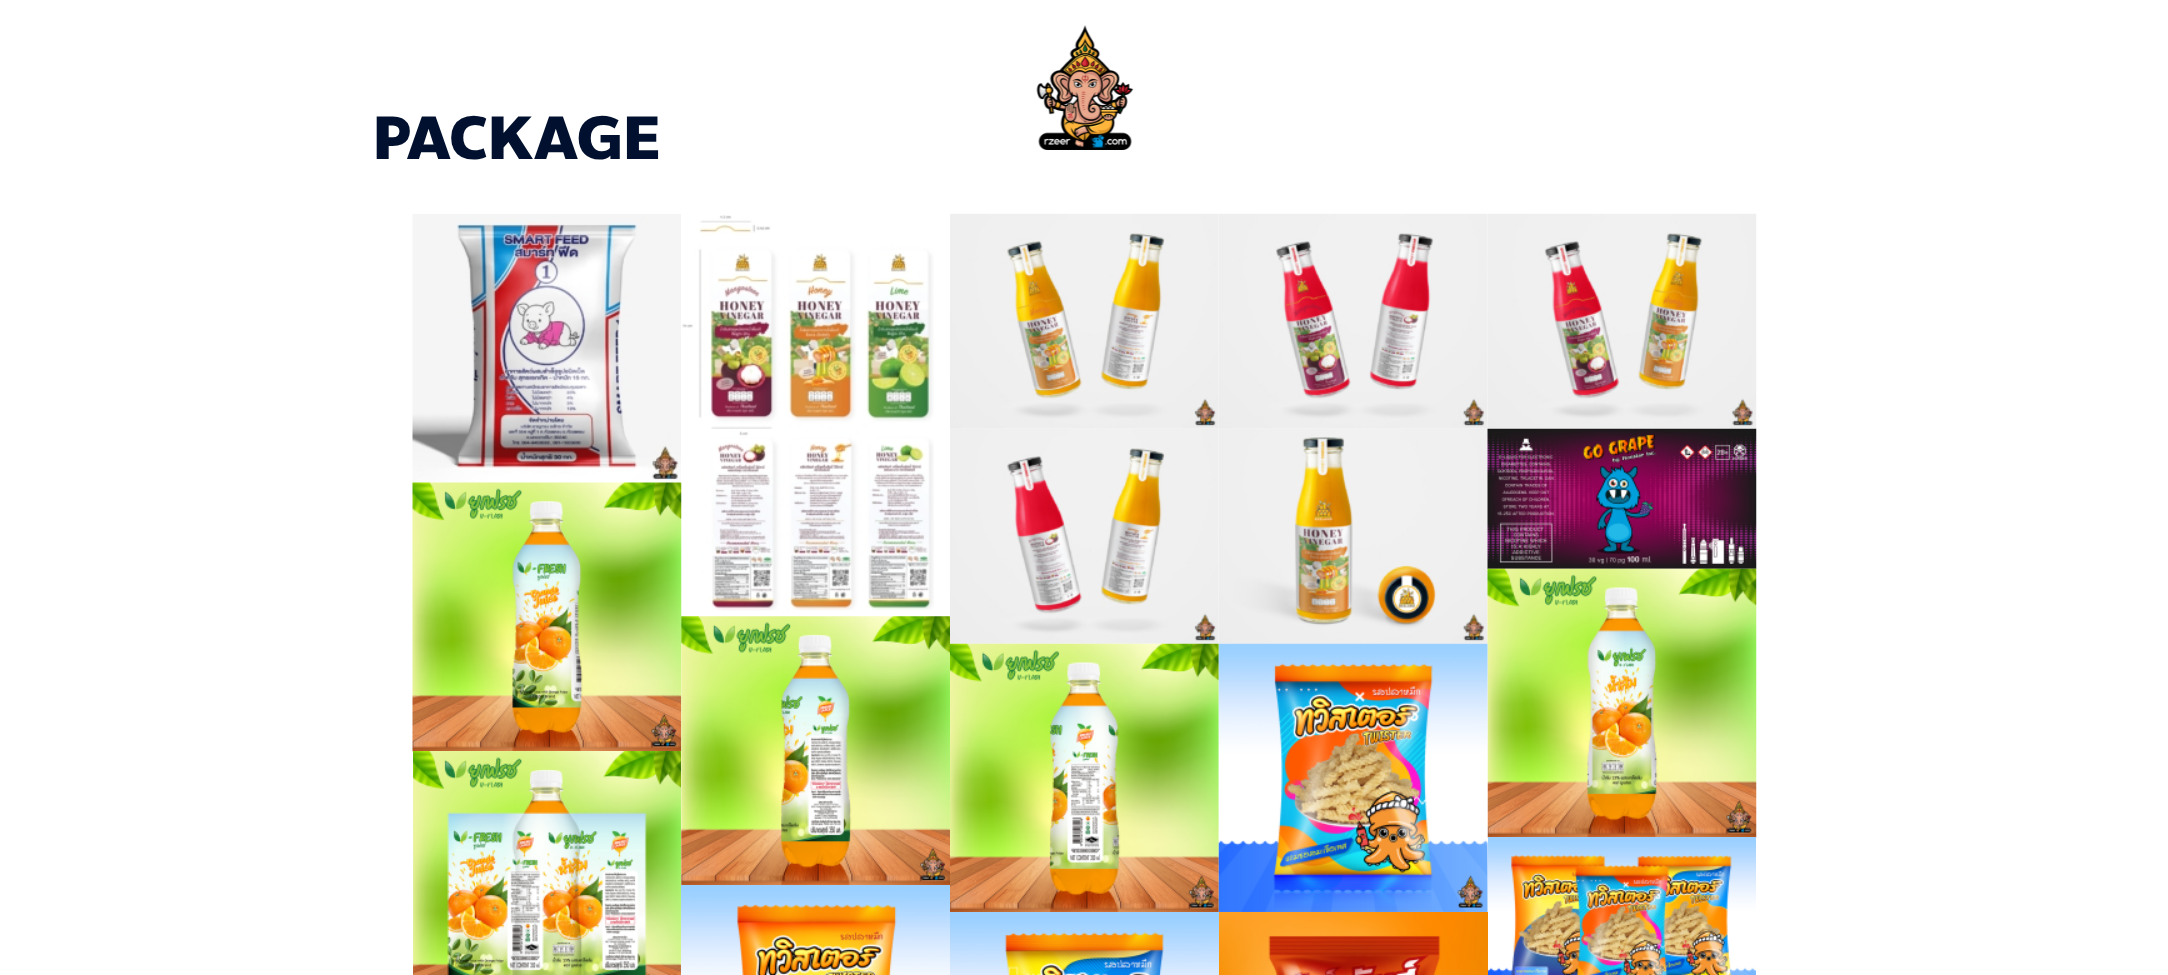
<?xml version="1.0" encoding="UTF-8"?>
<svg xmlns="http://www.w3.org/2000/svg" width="2168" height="975">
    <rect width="100%" height="100%" fill="#FFFFFF"/>
    <text x="372" y="159" font-family="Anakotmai" font-size="60" font-weight="700" fill="#00102E">PACKAGE</text>
    <image x="412" y="214" width="269" height="268" href="img_01.png"/>
    <image x="682" y="215" width="252" height="396" href="img_02.png"/>
    <image x="950" y="213" width="269" height="216" href="img_03.png"/>
    <image x="1219" y="213" width="269" height="216" href="img_04.png"/>
    <image x="1487" y="213" width="270" height="216" href="img_05.png"/>
    <image x="412" y="482" width="270" height="270" href="img_06.png"/>
    <image x="950" y="429" width="269" height="215" href="img_07.png"/>
    <image x="1219" y="429" width="269" height="215" href="img_08.png"/>
    <image x="1487" y="428" width="270" height="141" href="img_09.png"/>
    <image x="413" y="751" width="268" height="224" href="img_10.png"/>
    <image x="681" y="616" width="269" height="269" href="img_11.png"/>
    <image x="950" y="643" width="269" height="269" href="img_12.png"/>
    <image x="1487" y="568" width="270" height="270" href="img_14.png"/>
    <image x="1218" y="643" width="270" height="269" href="img_13.png"/>
    <image x="681" y="885" width="269" height="90" href="img_15.png"/>
    <image x="950" y="912" width="269" height="63" href="img_16.png"/>
    <image x="1219" y="912" width="269" height="63" href="img_17.png"/>
    <image x="1488" y="837" width="268" height="138" href="img_18.png"/>
    <image x="1036" y="25" width="98" height="125" href="img_19.png"/>
</svg>
